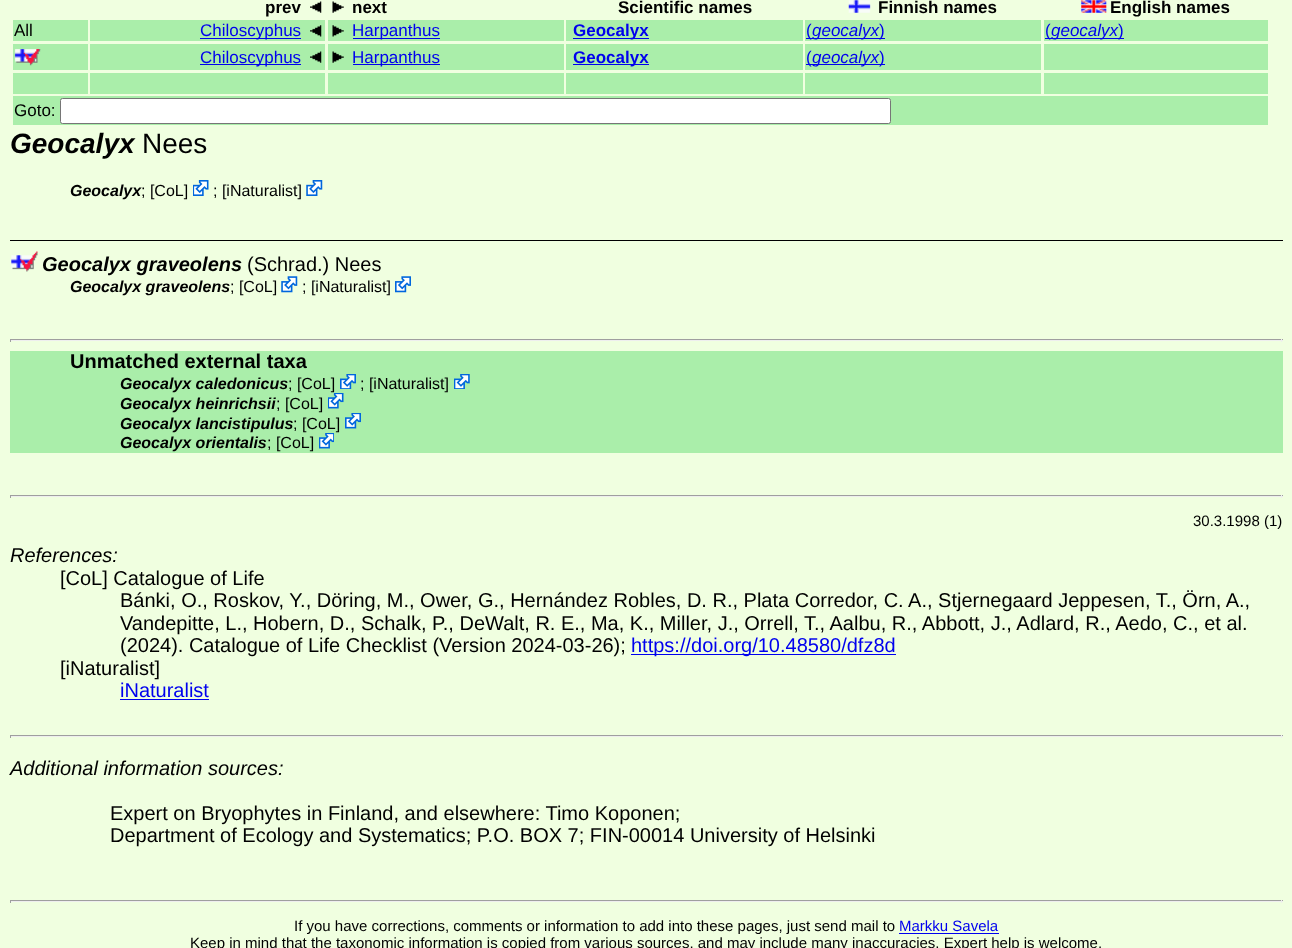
<?xml version="1.0" encoding="UTF-8"?>
<svg xmlns="http://www.w3.org/2000/svg" width="1292" height="948">
    <rect width="100%" height="100%" fill="#F0FFE0"/>
    <text x="265" y="13" font-family="Liberation Sans" font-size="17" font-weight="700" fill="#000000">prev</text>
    <image x="310" y="1" width="12" height="12" href="img_01.png"/>
    <image x="332" y="1" width="12" height="12" href="img_02.png"/>
    <text x="352" y="13" font-family="Liberation Sans" font-size="17" font-weight="700" fill="#000000">next</text>
    <text x="618" y="13" font-family="Liberation Sans" font-size="17" font-weight="700" fill="#000000">Scientific names</text>
    <image x="848" y="0" width="23" height="13" href="img_03.png"/>
    <text x="878" y="13" font-family="Liberation Sans" font-size="17" font-weight="700" fill="#000000">Finnish names</text>
    <image x="1081" y="0" width="26" height="13" href="img_04.png"/>
    <text x="1110" y="13" font-family="Liberation Sans" font-size="17" font-weight="700" fill="#000000">English names</text>
    <rect x="13" y="20" width="75" height="21" fill="#AAEEAA"/>
    <text x="14" y="36" font-family="Liberation Sans" font-size="17" fill="#000000">All</text>
    <rect x="90" y="20" width="235" height="21" fill="#AAEEAA"/>
    <rect x="200" y="38" width="101" height="1" fill="#0000EE"/>
    <text x="200" y="36" font-family="Liberation Sans" font-size="17" fill="#0000EE">Chiloscyphus</text>
    <image x="310" y="25" width="12" height="12" href="img_05.png"/>
    <rect x="328" y="20" width="236" height="21" fill="#AAEEAA"/>
    <image x="332" y="25" width="12" height="12" href="img_06.png"/>
    <rect x="353" y="38" width="87" height="1" fill="#0000EE"/>
    <text x="352" y="36" font-family="Liberation Sans" font-size="17" fill="#0000EE">Harpanthus</text>
    <rect x="566" y="20" width="237" height="21" fill="#AAEEAA"/>
    <rect x="573" y="38" width="76" height="1" fill="#0000EE"/>
    <text x="573" y="36" font-family="Liberation Sans" font-size="17" font-weight="700" fill="#0000EE">Geocalyx</text>
    <rect x="805" y="20" width="236" height="21" fill="#AAEEAA"/>
    <rect x="806" y="38" width="73" height="1" fill="#0000EE"/>
    <text x="806" y="36" font-family="Liberation Sans" font-size="17" fill="#0000EE">(</text>
    <text x="812" y="36" font-family="Liberation Sans" font-size="17" font-style="italic" fill="#0000EE">geocalyx</text>
    <rect x="879" y="38" width="6" height="1" fill="#0000EE"/>
    <text x="879" y="36" font-family="Liberation Sans" font-size="17" fill="#0000EE">)</text>
    <rect x="1044" y="20" width="224" height="21" fill="#AAEEAA"/>
    <rect x="1045" y="38" width="5" height="1" fill="#0000EE"/>
    <text x="1045" y="36" font-family="Liberation Sans" font-size="17" fill="#0000EE">(</text>
    <rect x="1050" y="38" width="68" height="1" fill="#0000EE"/>
    <text x="1051" y="36" font-family="Liberation Sans" font-size="17" font-style="italic" fill="#0000EE">geocalyx</text>
    <rect x="1118" y="38" width="6" height="1" fill="#0000EE"/>
    <text x="1118" y="36" font-family="Liberation Sans" font-size="17" fill="#0000EE">)</text>
    <rect x="13" y="44" width="75" height="26" fill="#AAEEAA"/>
    <image x="14" y="49" width="27" height="17" href="img_07.png"/>
    <rect x="90" y="44" width="235" height="26" fill="#AAEEAA"/>
    <rect x="200" y="64" width="101" height="1" fill="#0000EE"/>
    <text x="200" y="63" font-family="Liberation Sans" font-size="17" fill="#0000EE">Chiloscyphus</text>
    <image x="310" y="51" width="12" height="12" href="img_08.png"/>
    <rect x="328" y="44" width="236" height="26" fill="#AAEEAA"/>
    <image x="332" y="51" width="12" height="12" href="img_09.png"/>
    <rect x="353" y="64" width="87" height="1" fill="#0000EE"/>
    <text x="352" y="63" font-family="Liberation Sans" font-size="17" fill="#0000EE">Harpanthus</text>
    <rect x="566" y="44" width="237" height="26" fill="#AAEEAA"/>
    <rect x="573" y="64" width="76" height="1" fill="#0000EE"/>
    <text x="573" y="63" font-family="Liberation Sans" font-size="17" font-weight="700" fill="#0000EE">Geocalyx</text>
    <rect x="805" y="44" width="236" height="26" fill="#AAEEAA"/>
    <rect x="806" y="64" width="73" height="1" fill="#0000EE"/>
    <text x="806" y="63" font-family="Liberation Sans" font-size="17" fill="#0000EE">(</text>
    <text x="812" y="63" font-family="Liberation Sans" font-size="17" font-style="italic" fill="#0000EE">geocalyx</text>
    <rect x="879" y="64" width="6" height="1" fill="#0000EE"/>
    <text x="879" y="63" font-family="Liberation Sans" font-size="17" fill="#0000EE">)</text>
    <rect x="1044" y="44" width="224" height="26" fill="#AAEEAA"/>
    <rect x="13" y="73" width="75" height="21" fill="#AAEEAA"/>
    <rect x="90" y="73" width="235" height="21" fill="#AAEEAA"/>
    <rect x="328" y="73" width="236" height="21" fill="#AAEEAA"/>
    <rect x="566" y="73" width="237" height="21" fill="#AAEEAA"/>
    <rect x="805" y="73" width="236" height="21" fill="#AAEEAA"/>
    <rect x="1044" y="73" width="224" height="21" fill="#AAEEAA"/>
    <rect x="13" y="96" width="1255" height="29" fill="#AAEEAA"/>
    <text x="14" y="116" font-family="Liberation Sans" font-size="17" fill="#000000">Goto:</text>
    <rect x="60.5" y="98.5" width="830" height="25" rx="2" fill="#FFFFFF" stroke="#767676"/>
    <text x="10" y="153" font-family="Liberation Sans" font-size="28" font-weight="700" font-style="italic" fill="#000000">Geocalyx</text>
    <text x="142" y="153" font-family="Liberation Sans" font-size="28" fill="#000000">Nees</text>
    <text x="70" y="196" font-family="Liberation Sans" font-size="16" font-weight="700" font-style="italic" fill="#000000">Geocalyx</text>
    <text x="141" y="196" font-family="Liberation Sans" font-size="16" fill="#000000">; [CoL]</text>
    <image x="193" y="180" width="16" height="16" href="img_10.png"/>
    <text x="213" y="196" font-family="Liberation Sans" font-size="16" fill="#000000">; [iNaturalist]</text>
    <image x="306" y="180" width="17" height="16" href="img_11.png"/>
    <rect x="10" y="240" width="1273" height="1" fill="#000000"/>
    <image x="11" y="251" width="27" height="21" href="img_12.png"/>
    <text x="42" y="271" font-family="Liberation Sans" font-size="20" font-weight="700" font-style="italic" fill="#000000">Geocalyx graveolens</text>
    <text x="247" y="271" font-family="Liberation Sans" font-size="20" fill="#000000">(Schrad.) Nees</text>
    <text x="70" y="292" font-family="Liberation Sans" font-size="16" font-weight="700" font-style="italic" fill="#000000">Geocalyx graveolens</text>
    <text x="230" y="292" font-family="Liberation Sans" font-size="16" fill="#000000">; [CoL]</text>
    <image x="281" y="276" width="17" height="17" href="img_13.png"/>
    <text x="302" y="292" font-family="Liberation Sans" font-size="16" fill="#000000">; [iNaturalist]</text>
    <image x="395" y="276" width="16" height="17" href="img_14.png"/>
    <rect x="10" y="339" width="1273" height="1" fill="#9F9F9F"/>
    <rect x="1281" y="339" width="1" height="3" fill="#EEEEEE"/>
    <rect x="10" y="340" width="1273" height="1" fill="#EEEEEE"/>
    <rect x="10" y="339" width="1" height="3" fill="#9F9F9F"/>
    <rect x="10" y="351" width="1273" height="102" fill="#AAEEAA"/>
    <text x="70" y="368" font-family="Liberation Sans" font-size="20" font-weight="700" fill="#000000">Unmatched external taxa</text>
    <text x="120" y="389" font-family="Liberation Sans" font-size="16" font-weight="700" font-style="italic" fill="#000000">Geocalyx caledonicus</text>
    <text x="288" y="389" font-family="Liberation Sans" font-size="16" fill="#000000">; [CoL]</text>
    <image x="340" y="374" width="16" height="15" href="img_15.png"/>
    <text x="360" y="389" font-family="Liberation Sans" font-size="16" fill="#000000">; [iNaturalist]</text>
    <image x="454" y="374" width="16" height="15" href="img_16.png"/>
    <text x="120" y="409" font-family="Liberation Sans" font-size="16" font-weight="700" font-style="italic" fill="#000000">Geocalyx heinrichsii</text>
    <text x="276" y="409" font-family="Liberation Sans" font-size="16" fill="#000000">; [CoL]</text>
    <image x="328" y="393" width="16" height="16" href="img_17.png"/>
    <text x="120" y="429" font-family="Liberation Sans" font-size="16" font-weight="700" font-style="italic" fill="#000000">Geocalyx lancistipulus</text>
    <text x="293" y="429" font-family="Liberation Sans" font-size="16" fill="#000000">; [CoL]</text>
    <image x="345" y="413" width="16" height="16" href="img_18.png"/>
    <text x="120" y="448" font-family="Liberation Sans" font-size="16" font-weight="700" font-style="italic" fill="#000000">Geocalyx orientalis</text>
    <text x="267" y="448" font-family="Liberation Sans" font-size="16" fill="#000000">; [CoL]</text>
    <image x="319" y="433" width="15" height="16" href="img_19.png"/>
    <rect x="10" y="495" width="1273" height="1" fill="#9F9F9F"/>
    <rect x="1281" y="495" width="1" height="3" fill="#EEEEEE"/>
    <rect x="10" y="496" width="1273" height="1" fill="#EEEEEE"/>
    <rect x="10" y="495" width="1" height="3" fill="#9F9F9F"/>
    <text x="1193" y="526" font-family="Liberation Sans" font-size="15" fill="#000000">30.3.1998 (1)</text>
    <text x="10" y="562" font-family="Liberation Sans" font-size="20" font-style="italic" fill="#000000">References:</text>
    <text x="60" y="585" font-family="Liberation Sans" font-size="20" fill="#000000">[CoL] Catalogue of Life</text>
    <text font-family="Liberation Sans" font-size="20" fill="#000000">
        <tspan x="120" y="607">Bánki, O., Roskov, Y., Döring, M., Ower, G., Hernández Robles, D. R., Plata Corredor, C. A., Stjernegaard Jeppesen, T., Örn, A.,</tspan>
        <tspan x="120" y="630">Vandepitte, L., Hobern, D., Schalk, P., DeWalt, R. E., Ma, K., Miller, J., Orrell, T., Aalbu, R., Abbott, J., Adlard, R., Aedo, C., et al.</tspan>
        <tspan x="120" y="652">(2024). Catalogue of Life Checklist (Version 2024-03-26);</tspan>
    </text>
    <rect x="631" y="654" width="265" height="1" fill="#0000EE"/>
    <text x="631" y="652" font-family="Liberation Sans" font-size="20" fill="#0000EE">https://doi.org/10.48580/dfz8d</text>
    <text x="60" y="675" font-family="Liberation Sans" font-size="20" fill="#000000">[iNaturalist]</text>
    <text x="120" y="697" font-family="Liberation Sans" font-size="20" fill="#0000EE">iNaturalist</text>
    <rect x="120" y="699" width="89" height="1" fill="#0000EE"/>
    <rect x="10" y="735" width="1273" height="1" fill="#9F9F9F"/>
    <rect x="1281" y="735" width="1" height="3" fill="#EEEEEE"/>
    <rect x="10" y="736" width="1273" height="1" fill="#EEEEEE"/>
    <rect x="10" y="735" width="1" height="3" fill="#9F9F9F"/>
    <text x="10" y="775" font-family="Liberation Sans" font-size="20" font-style="italic" fill="#000000">Additional information sources:</text>
    <text font-family="Liberation Sans" font-size="20" fill="#000000">
        <tspan x="110" y="820">Expert on Bryophytes in Finland, and elsewhere: Timo Koponen;</tspan>
        <tspan x="110" y="842">Department of Ecology and Systematics; P.O. BOX 7; FIN-00014 University of Helsinki</tspan>
    </text>
    <rect x="10" y="900" width="1273" height="1" fill="#9F9F9F"/>
    <rect x="1281" y="900" width="1" height="3" fill="#EEEEEE"/>
    <rect x="10" y="901" width="1273" height="1" fill="#EEEEEE"/>
    <rect x="10" y="900" width="1" height="3" fill="#9F9F9F"/>
    <text x="294" y="931" font-family="Liberation Sans" font-size="15" fill="#000000">If you have corrections, comments or information to add into these pages, just send mail to</text>
    <text x="899" y="931" font-family="Liberation Sans" font-size="15" fill="#0000EE">Markku Savela</text>
    <rect x="899" y="933" width="100" height="1" fill="#0000EE"/>
    <text x="190" y="948" font-family="Liberation Sans" font-size="15" fill="#000000">Keep in mind that the taxonomic information is copied from various sources, and may include many inaccuracies. Expert help is welcome.</text>
</svg>
